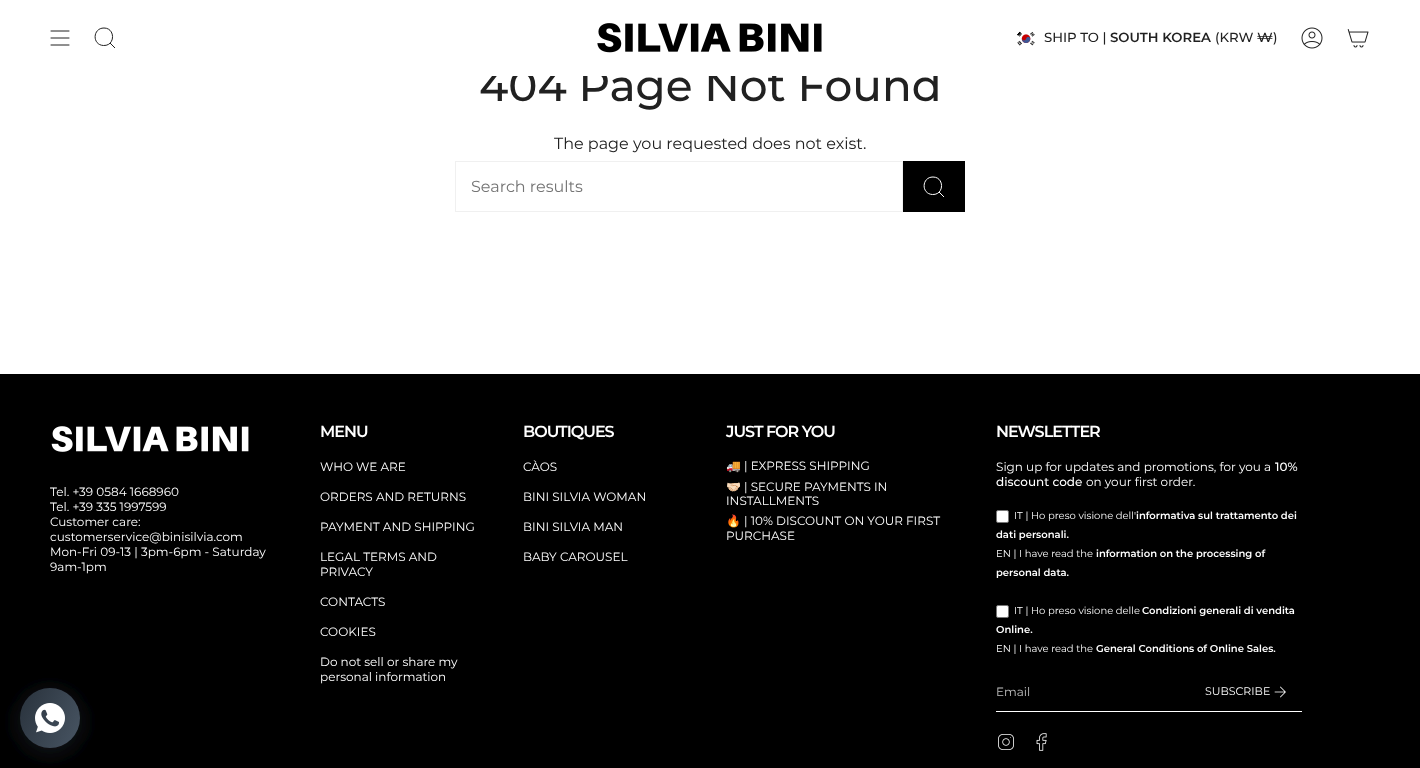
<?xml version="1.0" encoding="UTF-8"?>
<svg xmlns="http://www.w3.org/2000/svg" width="1420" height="768">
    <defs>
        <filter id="blur1" x="-50%" y="-200%" width="200%" height="500%"><feGaussianBlur stdDeviation="12"/></filter>
        <linearGradient id="g1" gradientUnits="userSpaceOnUse" x1="14" y1="701" x2="86" y2="735"><stop offset="0" stop-color="#29323C"/><stop offset="1" stop-color="#485563"/></linearGradient>
    </defs>
    <rect width="100%" height="100%" fill="#FFFFFF"/>
    <path d="M 51 31 H 69 M 51 38 H 69 M 51 45 H 69" fill="none" stroke="#212121" stroke-linecap="round" stroke-linejoin="round"/>
    <path d="M 104 28 C 115.5 28 115.5 46 103.5 45.5 C 92 45 92.5 28 104 28 Z M 110 43 L 115 48" fill="none" stroke="#212121"/>
    <image x="597" y="23" width="225" height="30" href="img_01.png"/>
    <image x="1017" y="31" width="18" height="15" href="img_02.png"/>
    <text x="1044" y="42" font-family="Montserrat" font-size="13.25" font-weight="500" fill="#212121">SHIP TO |</text>
    <text x="1110" y="42" font-family="Montserrat" font-size="13.25" font-weight="600" fill="#212121">SOUTH KOREA</text>
    <text x="1215" y="42" font-family="Montserrat" font-size="13.25" font-weight="500" fill="#212121">(KRW ₩)</text>
    <image x="1301" y="27" width="22" height="22" href="img_03.png"/>
    <image x="1347" y="29" width="22" height="19" href="img_04.png"/>
    <text x="479" y="101" font-family="Montserrat" font-size="43.75" font-weight="500" fill="#212121">404 Page Not Found</text>
    <rect x="492" y="68" width="446" height="8" fill="#FFFFFF"/>
    <text x="554" y="149" font-family="Montserrat" font-size="16" fill="#212121">The page you requested does not exist.</text>
    <rect x="455.5" y="161.5" width="447" height="50" fill="none" stroke="#F0F0F0"/>
    <text x="471" y="192" font-family="Montserrat" font-size="16" fill="#757575">Search results</text>
    <rect x="903" y="161" width="62" height="51" fill="#000000"/>
    <path d="M 933 177 C 944.5 177 944.5 195 932.5 194.5 C 921 194 921.5 177 933 177 Z M 939 192 L 944 197" fill="none" stroke="#FFFFFF"/>
    <rect x="0" y="374" width="1420" height="394" fill="#000000"/>
    <image x="51" y="426" width="198" height="26" href="img_05.png"/>
    <text font-family="Montserrat" font-size="12" fill="#FFFFFF">
        <tspan x="50" y="496">Tel. +39 0584 1668960</tspan>
        <tspan x="50" y="511">Tel. +39 335 1997599</tspan>
        <tspan x="50" y="526">Customer care:</tspan>
        <tspan x="50" y="541">customerservice@binisilvia.com</tspan>
        <tspan x="50" y="556">Mon-Fri 09-13 | 3pm-6pm - Saturday</tspan>
        <tspan x="50" y="571">9am-1pm</tspan>
    </text>
    <text x="320" y="437" font-family="Montserrat" font-size="16" font-weight="600" letter-spacing="-1" fill="#FFFFFF">MENU</text>
    <text x="320" y="471" font-family="Montserrat" font-size="12" fill="#FFFFFF">WHO WE ARE</text>
    <text x="320" y="501" font-family="Montserrat" font-size="12" fill="#FFFFFF">ORDERS AND RETURNS</text>
    <text x="320" y="531" font-family="Montserrat" font-size="12" fill="#FFFFFF">PAYMENT AND SHIPPING</text>
    <text font-family="Montserrat" font-size="12" fill="#FFFFFF">
        <tspan x="320" y="561">LEGAL TERMS AND</tspan>
        <tspan x="320" y="576">PRIVACY</tspan>
    </text>
    <text x="320" y="606" font-family="Montserrat" font-size="12" fill="#FFFFFF">CONTACTS</text>
    <text x="320" y="636" font-family="Montserrat" font-size="12" fill="#FFFFFF">COOKIES</text>
    <text font-family="Montserrat" font-size="12" fill="#FFFFFF">
        <tspan x="320" y="666">Do not sell or share my</tspan>
        <tspan x="320" y="681">personal information</tspan>
    </text>
    <text x="523" y="437" font-family="Montserrat" font-size="16" font-weight="600" letter-spacing="-1" fill="#FFFFFF">BOUTIQUES</text>
    <text x="523" y="471" font-family="Montserrat" font-size="12" fill="#FFFFFF">CÀOS</text>
    <text x="523" y="501" font-family="Montserrat" font-size="12" fill="#FFFFFF">BINI SILVIA WOMAN</text>
    <text x="523" y="531" font-family="Montserrat" font-size="12" fill="#FFFFFF">BINI SILVIA MAN</text>
    <text x="523" y="561" font-family="Montserrat" font-size="12" fill="#FFFFFF">BABY CAROUSEL</text>
    <text x="726" y="437" font-family="Montserrat" font-size="16" font-weight="600" letter-spacing="-1" fill="#FFFFFF">JUST FOR YOU</text>
    <text x="726" y="470" font-family="Noto Color Emoji" font-size="12" fill="#FFFFFF">🚚</text>
    <text x="744" y="470" font-family="Montserrat" font-size="12" fill="#FFFFFF">| EXPRESS SHIPPING</text>
    <text x="726" y="491" font-family="Noto Color Emoji" font-size="12" fill="#FFFFFF">🤝🏻</text>
    <text x="744" y="491" font-family="Montserrat" font-size="12" fill="#FFFFFF">| SECURE PAYMENTS IN</text>
    <text x="726" y="505" font-family="Montserrat" font-size="12" fill="#FFFFFF">INSTALLMENTS</text>
    <text x="726" y="525" font-family="Noto Color Emoji" font-size="12" fill="#FFFFFF">🔥</text>
    <text x="744" y="525" font-family="Montserrat" font-size="12" fill="#FFFFFF">| 10% DISCOUNT ON YOUR FIRST</text>
    <text x="726" y="540" font-family="Montserrat" font-size="12" fill="#FFFFFF">PURCHASE</text>
    <text x="996" y="437" font-family="Montserrat" font-size="16" font-weight="600" letter-spacing="-1" fill="#FFFFFF">NEWSLETTER</text>
    <text x="996" y="471" font-family="Montserrat" font-size="12" fill="#FFFFFF">Sign up for updates and promotions, for you a</text>
    <text x="1275" y="471" font-family="Montserrat" font-size="12" font-weight="500" fill="#FFFFFF">10%</text>
    <text x="996" y="486" font-family="Montserrat" font-size="12" font-weight="500" fill="#FFFFFF">discount code</text>
    <text x="1086" y="486" font-family="Montserrat" font-size="12" fill="#FFFFFF">on your first order.</text>
    <rect x="996.5" y="510.5" width="12" height="12" rx="1.5" fill="#FFFFFF" stroke="#767676"/>
    <text x="1014" y="519" font-family="Montserrat" font-size="10" fill="#FFFFFF">IT | Ho preso visione dell'</text>
    <text x="1136" y="519" font-family="Montserrat" font-size="10" font-weight="600" fill="#FFFFFF">informativa sul trattamento dei</text>
    <text x="996" y="538" font-family="Montserrat" font-size="10" font-weight="600" fill="#FFFFFF">dati personali.</text>
    <text x="996" y="557" font-family="Montserrat" font-size="10" fill="#FFFFFF">EN | I have read the</text>
    <text x="1096" y="557" font-family="Montserrat" font-size="10" font-weight="600" fill="#FFFFFF">information on the processing of</text>
    <text x="996" y="576" font-family="Montserrat" font-size="10" font-weight="600" fill="#FFFFFF">personal data.</text>
    <rect x="996.5" y="605.5" width="12" height="12" rx="1.5" fill="#FFFFFF" stroke="#767676"/>
    <text x="1014" y="614" font-family="Montserrat" font-size="10" fill="#FFFFFF">IT | Ho preso visione delle</text>
    <text x="1142" y="614" font-family="Montserrat" font-size="10" font-weight="600" fill="#FFFFFF">Condizioni generali di vendita</text>
    <text x="996" y="633" font-family="Montserrat" font-size="10" font-weight="600" fill="#FFFFFF">Online.</text>
    <text x="996" y="652" font-family="Montserrat" font-size="10" fill="#FFFFFF">EN | I have read the</text>
    <text x="1096" y="652" font-family="Montserrat" font-size="10" font-weight="600" fill="#FFFFFF">General Conditions of Online Sales.</text>
    <rect x="996" y="711" width="306" height="1" fill="#FFFFFF"/>
    <text x="996" y="696" font-family="Montserrat" font-size="12" fill="#BFBFBF">Email</text>
    <text x="1205" y="695" font-family="Montserrat" font-size="11" fill="#FFFFFF">SUBSCRIBE</text>
    <image x="1274" y="686" width="12" height="12" href="img_06.png"/>
    <image x="998" y="734" width="16" height="16" href="img_07.png"/>
    <image x="1036" y="733" width="11" height="18" href="img_08.png"/>
    <rect x="20" y="692" width="60" height="60" rx="30" fill="#29323C" fill-opacity="0.5" filter="url(#blur1)"/>
    <circle cx="50" cy="718" r="30" fill="url(#g1)"/>
    <image x="35" y="703" width="30" height="30" href="img_09.png"/>
</svg>
